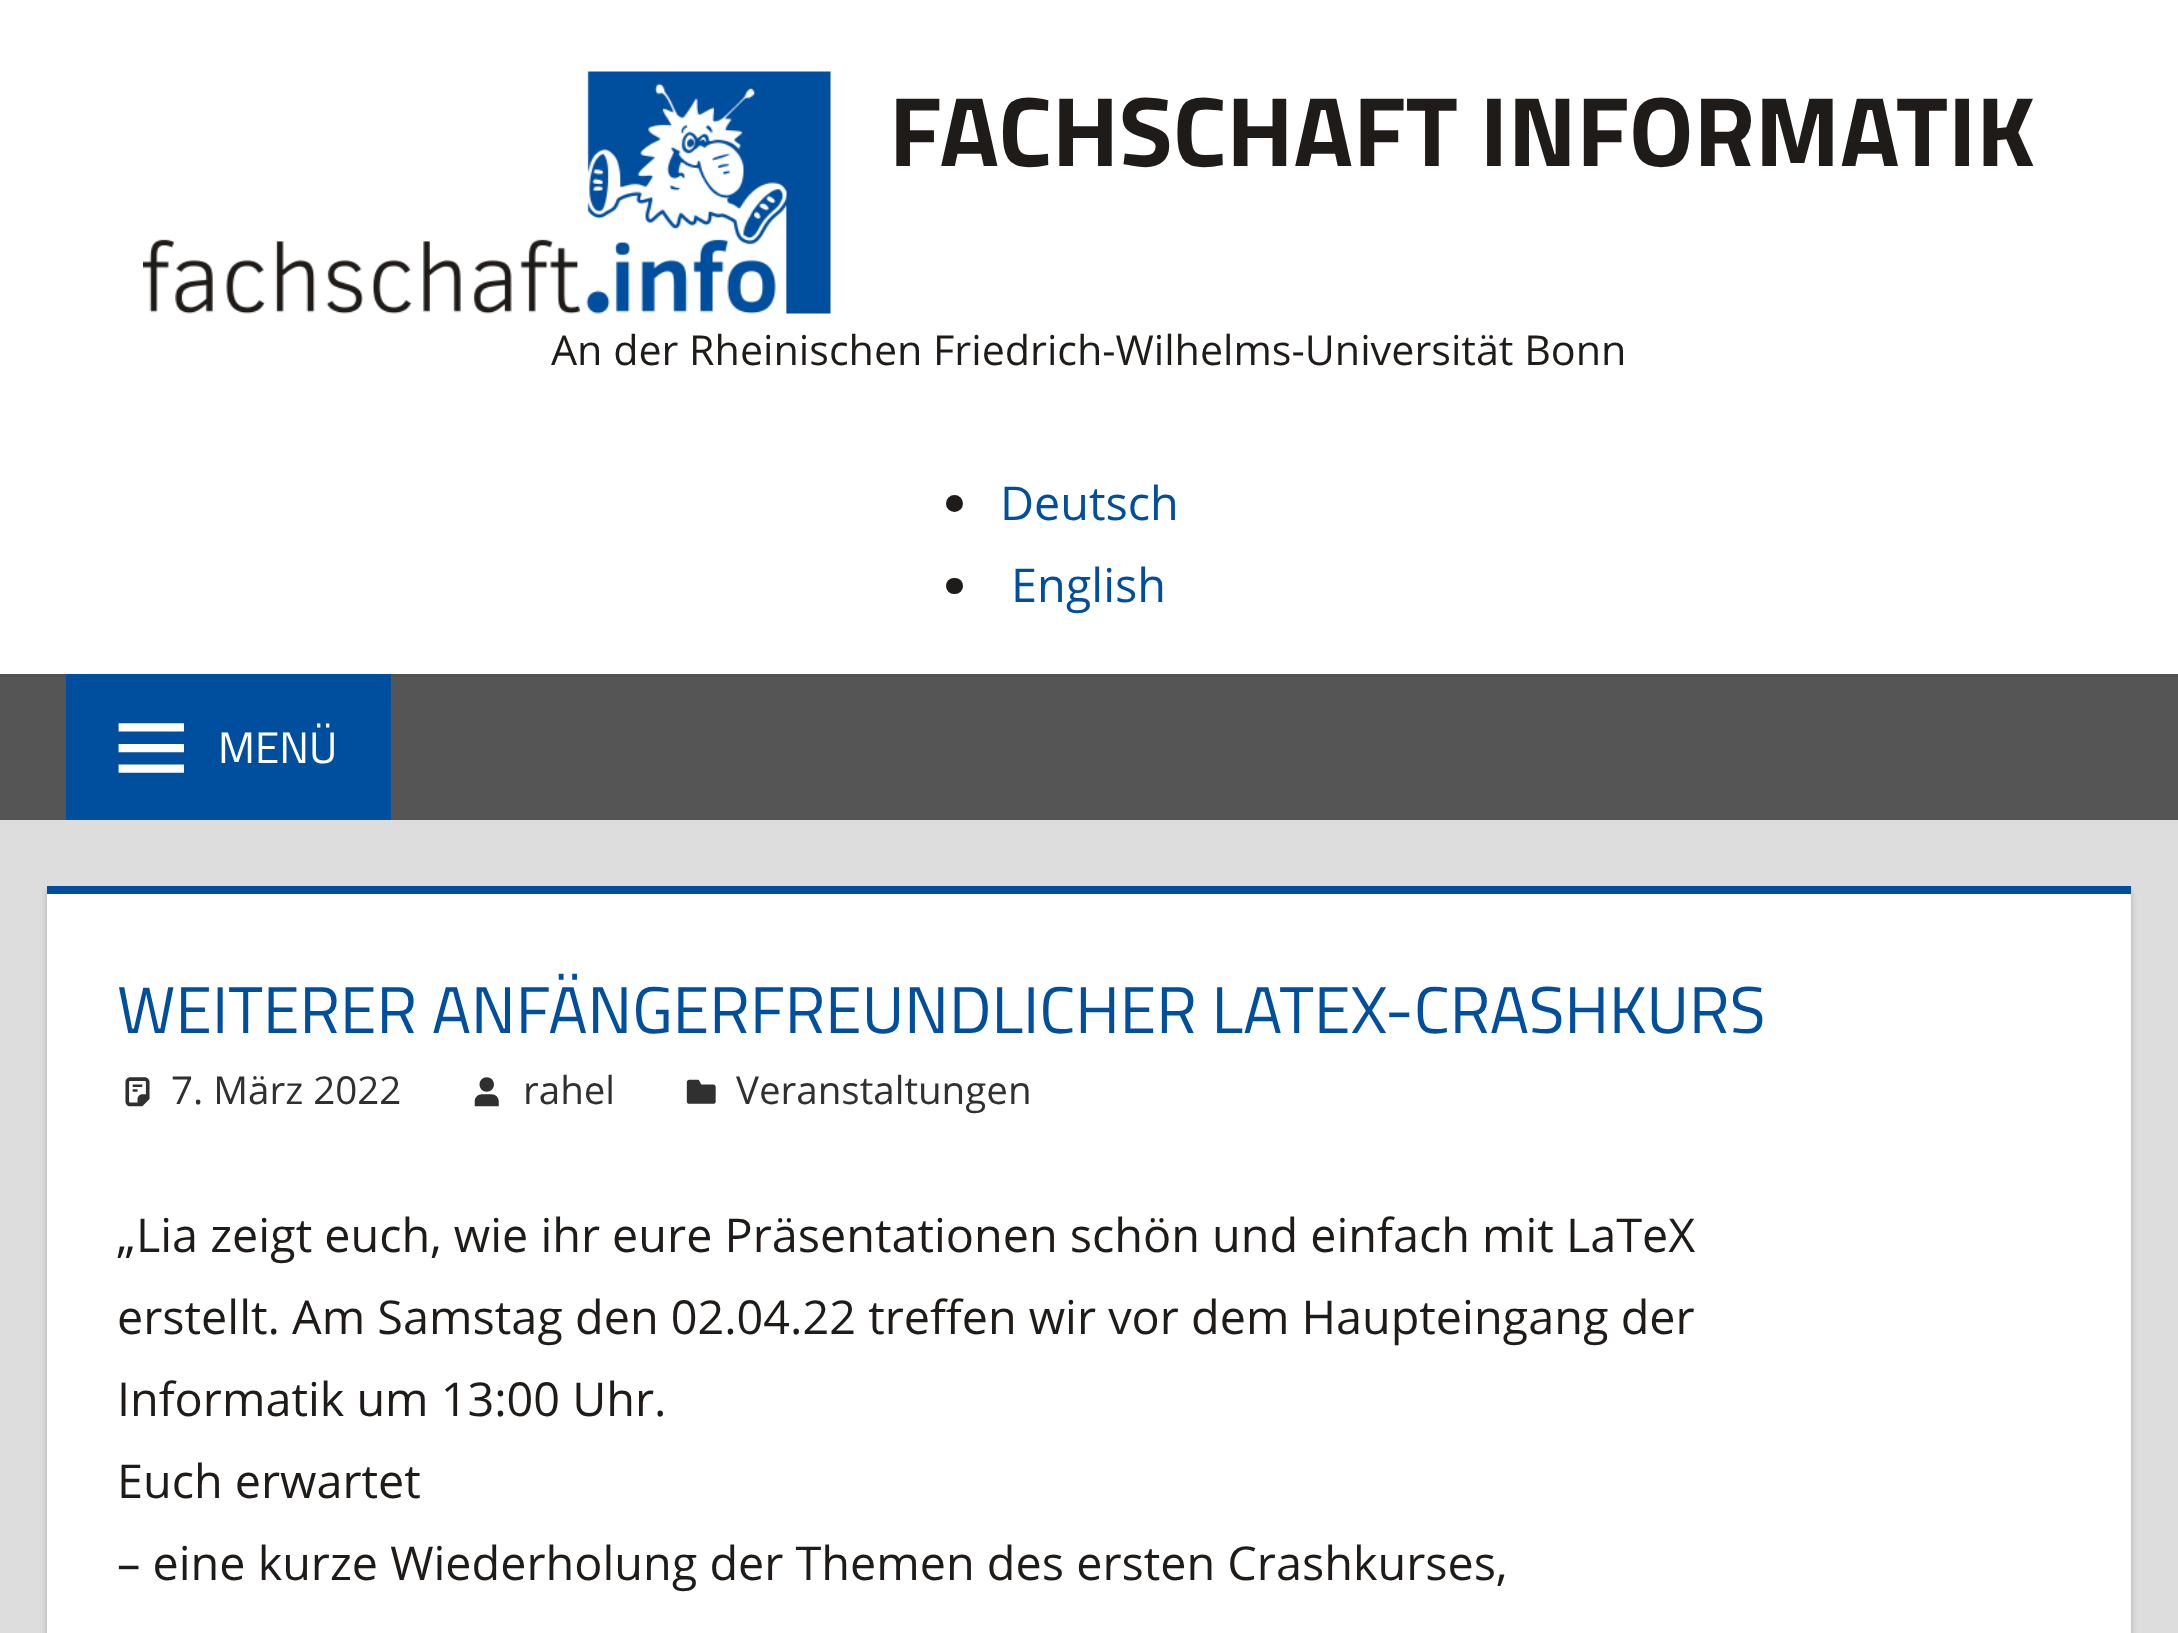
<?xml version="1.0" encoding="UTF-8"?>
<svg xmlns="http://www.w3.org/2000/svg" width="2178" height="1633">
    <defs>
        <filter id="blur1" x="-50%" y="-200%" width="200%" height="500%"><feGaussianBlur stdDeviation="3"/></filter>
    </defs>
    <rect width="100%" height="100%" fill="#DDDDDD"/>
    <rect x="0" y="0" width="2178" height="674" fill="#FFFFFF"/>
    <image x="143" y="71" width="688" height="243" href="img_01.png"/>
    <text x="889" y="166" font-family="Titillium Web" font-size="99" font-weight="700" fill="#1F1B19">FACHSCHAFT INFORMATIK</text>
    <text x="551" y="365" font-family="Open Sans" font-size="41.25" fill="#1F1B19">An der Rheinischen Friedrich-Wilhelms-Universität Bonn</text>
    <circle cx="954.5" cy="503.5" r="8.5" fill="#1F1B19"/>
    <text x="1000" y="520" font-family="Open Sans" font-size="46.75" fill="#004E9E">Deutsch</text>
    <rect x="946" y="578" width="17" height="16" rx="8" fill="#1F1B19"/>
    <text x="1011" y="602" font-family="Open Sans" font-size="46.75" fill="#004E9E">English</text>
    <rect x="0" y="677" width="2178" height="143" fill="#555555"/>
    <rect x="0" y="674" width="2178" height="3" fill="#515151"/>
    <rect x="66" y="674" width="325" height="146" fill="#004E9E"/>
    <image x="118" y="723" width="66" height="50" href="img_02.png"/>
    <text x="218" y="763" font-family="Titillium Web" font-size="44" fill="#FFFFFF">MENÜ</text>
    <rect x="47" y="891" width="2084" height="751" fill="#AAAAAA" filter="url(#blur1)"/>
    <rect x="47" y="894" width="2084" height="739" fill="#FFFFFF"/>
    <rect x="47" y="886" width="2084" height="8" fill="#004E9E"/>
    <text x="117" y="1033" font-family="Titillium Web" font-size="66" fill="#004E9E">WEITERER ANFÄNGERFREUNDLICHER LATEX-CRASHKURS</text>
    <image x="125" y="1077" width="25" height="30" href="img_03.png"/>
    <text x="171" y="1104" font-family="Open Sans" font-size="38.5" fill="#303030">7. März 2022</text>
    <image x="474" y="1077" width="25" height="30" href="img_04.png"/>
    <text x="523" y="1104" font-family="Open Sans" font-size="38.5" fill="#303030">rahel</text>
    <image x="686" y="1079" width="30" height="25" href="img_05.png"/>
    <text x="736" y="1104" font-family="Open Sans" font-size="38.5" fill="#303030">Veranstaltungen</text>
    <text font-family="Open Sans" font-size="46.75" fill="#1F1B19">
        <tspan x="117" y="1252">„Lia zeigt euch, wie ihr eure Präsentationen schön und einfach mit LaTeX</tspan>
        <tspan x="117" y="1334">erstellt. Am Samstag den 02.04.22 treffen wir vor dem Haupteingang der</tspan>
        <tspan x="117" y="1416">Informatik um 13:00 Uhr.</tspan>
        <tspan x="117" y="1498">Euch erwartet</tspan>
        <tspan x="117" y="1580">– eine kurze Wiederholung der Themen des ersten Crashkurses,</tspan>
    </text>
</svg>
